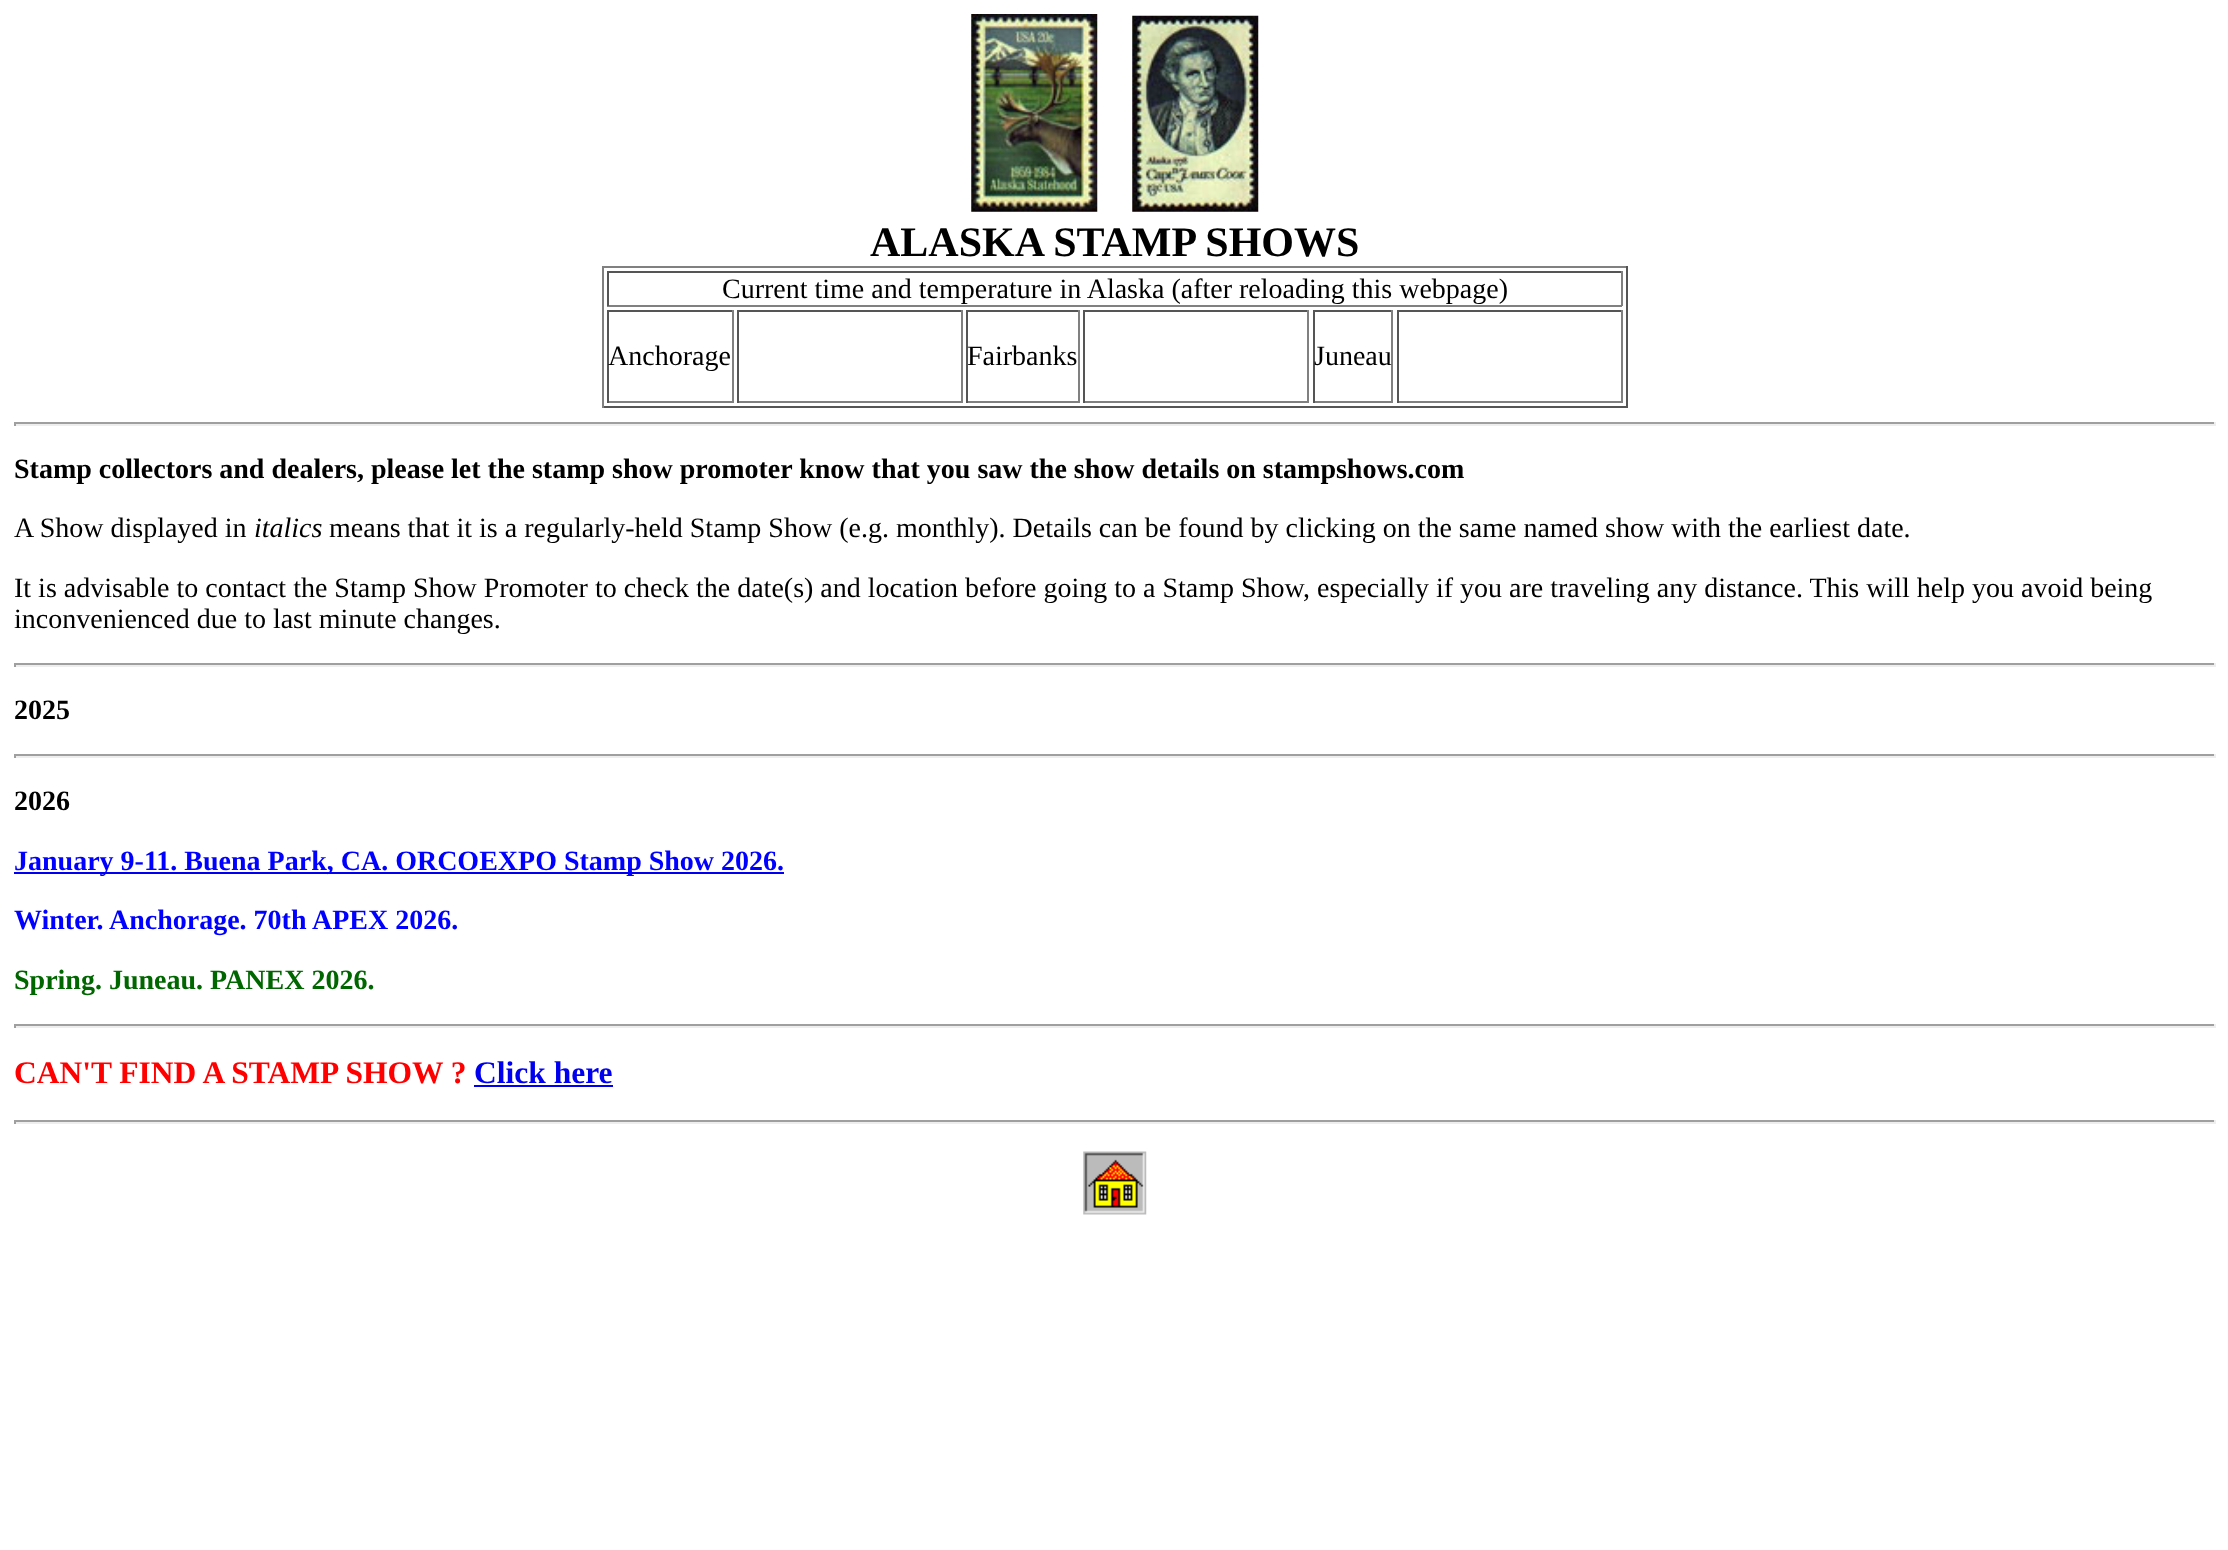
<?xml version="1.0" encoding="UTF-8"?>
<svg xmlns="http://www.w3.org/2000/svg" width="2228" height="1550">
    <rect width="100%" height="100%" fill="#FFFFFF"/>
    <image x="971" y="14" width="127" height="198" href="img_01.png"/>
    <image x="1132" y="15" width="127" height="197" href="img_02.png"/>
    <text x="870" y="256" font-family="Liberation Serif" font-size="42" font-weight="700" fill="#000000">ALASKA STAMP SHOWS</text>
    <rect x="602" y="266" width="1026" height="2" fill="#808080"/>
    <rect x="1626" y="266" width="2" height="142" fill="#555555"/>
    <rect x="602" y="406" width="1026" height="2" fill="#555555"/>
    <rect x="602" y="266" width="2" height="142" fill="#808080"/>
    <rect x="607" y="271" width="1015" height="2" fill="#555555"/>
    <rect x="1621" y="271" width="2" height="35" fill="#808080"/>
    <rect x="607" y="305" width="1015" height="2" fill="#808080"/>
    <rect x="607" y="271" width="2" height="35" fill="#555555"/>
    <text x="722" y="298" font-family="Liberation Serif" font-size="28" fill="#000000">Current time and temperature in Alaska (after reloading this webpage)</text>
    <rect x="607" y="310" width="126" height="2" fill="#555555"/>
    <rect x="732" y="310" width="2" height="93" fill="#808080"/>
    <rect x="607" y="401" width="126" height="2" fill="#808080"/>
    <rect x="607" y="310" width="2" height="93" fill="#555555"/>
    <text x="608" y="365" font-family="Liberation Serif" font-size="28" fill="#000000">Anchorage</text>
    <rect x="737" y="310" width="226" height="2" fill="#555555"/>
    <rect x="961" y="310" width="2" height="93" fill="#808080"/>
    <rect x="737" y="401" width="226" height="2" fill="#808080"/>
    <rect x="737" y="310" width="2" height="93" fill="#555555"/>
    <rect x="966" y="310" width="114" height="2" fill="#555555"/>
    <rect x="1078" y="310" width="2" height="93" fill="#808080"/>
    <rect x="966" y="401" width="114" height="2" fill="#808080"/>
    <rect x="966" y="310" width="2" height="93" fill="#555555"/>
    <text x="967" y="365" font-family="Liberation Serif" font-size="28" fill="#000000">Fairbanks</text>
    <rect x="1083" y="310" width="226" height="2" fill="#555555"/>
    <rect x="1307" y="310" width="2" height="93" fill="#808080"/>
    <rect x="1083" y="401" width="226" height="2" fill="#808080"/>
    <rect x="1083" y="310" width="2" height="93" fill="#555555"/>
    <rect x="1313" y="310" width="80" height="2" fill="#555555"/>
    <rect x="1391" y="310" width="2" height="93" fill="#808080"/>
    <rect x="1313" y="401" width="80" height="2" fill="#808080"/>
    <rect x="1313" y="310" width="2" height="93" fill="#555555"/>
    <text x="1314" y="365" font-family="Liberation Serif" font-size="28" fill="#000000">Juneau</text>
    <rect x="1397" y="310" width="225" height="2" fill="#555555"/>
    <rect x="1621" y="310" width="2" height="93" fill="#808080"/>
    <rect x="1397" y="401" width="225" height="2" fill="#808080"/>
    <rect x="1397" y="310" width="2" height="93" fill="#555555"/>
    <rect x="14" y="422" width="2202" height="2" fill="#9F9F9F"/>
    <rect x="2214" y="422" width="2" height="4" fill="#EEEEEE"/>
    <rect x="14" y="424" width="2202" height="2" fill="#EEEEEE"/>
    <rect x="14" y="422" width="2" height="4" fill="#9F9F9F"/>
    <text x="14" y="478" font-family="Liberation Serif" font-size="28" font-weight="700" fill="#000000">Stamp collectors and dealers, please let the stamp show promoter know that you saw the show details on stampshows.com</text>
    <text x="14" y="537" font-family="Liberation Serif" font-size="28" fill="#000000">A Show displayed in</text>
    <text x="254" y="537" font-family="Liberation Serif" font-size="28" font-style="italic" fill="#000000">italics</text>
    <text x="329" y="537" font-family="Liberation Serif" font-size="28" fill="#000000">means that it is a regularly-held Stamp Show (e.g. monthly). Details can be found by clicking on the same named show with the earliest date.</text>
    <text font-family="Liberation Serif" font-size="28" fill="#000000">
        <tspan x="14" y="597">It is advisable to contact the Stamp Show Promoter to check the date(s) and location before going to a Stamp Show, especially if you are traveling any distance. This will help you avoid being</tspan>
        <tspan x="14" y="628">inconvenienced due to last minute changes.</tspan>
    </text>
    <rect x="14" y="663" width="2202" height="2" fill="#9F9F9F"/>
    <rect x="2214" y="663" width="2" height="4" fill="#EEEEEE"/>
    <rect x="14" y="665" width="2202" height="2" fill="#EEEEEE"/>
    <rect x="14" y="663" width="2" height="4" fill="#9F9F9F"/>
    <text x="14" y="719" font-family="Liberation Serif" font-size="28" font-weight="700" fill="#000000">2025</text>
    <rect x="14" y="754" width="2202" height="2" fill="#9F9F9F"/>
    <rect x="2214" y="754" width="2" height="4" fill="#EEEEEE"/>
    <rect x="14" y="756" width="2202" height="2" fill="#EEEEEE"/>
    <rect x="14" y="754" width="2" height="4" fill="#9F9F9F"/>
    <text x="14" y="810" font-family="Liberation Serif" font-size="28" font-weight="700" fill="#000000">2026</text>
    <rect x="14" y="872" width="770" height="2" fill="#0000EE"/>
    <text x="14" y="870" font-family="Liberation Serif" font-size="28" font-weight="700" fill="#0000FF">January 9-11. Buena Park, CA. ORCOEXPO Stamp Show 2026.</text>
    <text x="14" y="929" font-family="Liberation Serif" font-size="28" font-weight="700" fill="#0000FF">Winter. Anchorage. 70th APEX 2026.</text>
    <text x="14" y="989" font-family="Liberation Serif" font-size="28" font-weight="700" fill="#006600">Spring. Juneau. PANEX 2026.</text>
    <rect x="14" y="1024" width="2202" height="2" fill="#9F9F9F"/>
    <rect x="2214" y="1024" width="2" height="4" fill="#EEEEEE"/>
    <rect x="14" y="1026" width="2202" height="2" fill="#EEEEEE"/>
    <rect x="14" y="1024" width="2" height="4" fill="#9F9F9F"/>
    <text x="14" y="1083" font-family="Liberation Serif" font-size="31.5" font-weight="700" fill="#FF0000">CAN'T FIND A STAMP SHOW ?</text>
    <text x="474" y="1083" font-family="Liberation Serif" font-size="31.5" font-weight="700" fill="#0000EE">Click here</text>
    <rect x="474" y="1085" width="139" height="2" fill="#0000EE"/>
    <rect x="14" y="1120" width="2202" height="2" fill="#9F9F9F"/>
    <rect x="2214" y="1120" width="2" height="4" fill="#EEEEEE"/>
    <rect x="14" y="1122" width="2202" height="2" fill="#EEEEEE"/>
    <rect x="14" y="1120" width="2" height="4" fill="#9F9F9F"/>
    <image x="1083" y="1151" width="64" height="64" href="img_03.png"/>
</svg>
